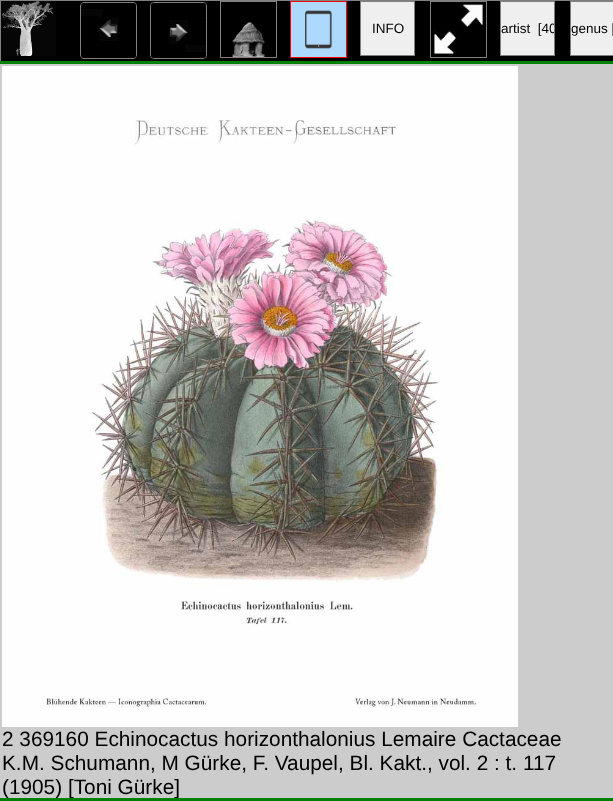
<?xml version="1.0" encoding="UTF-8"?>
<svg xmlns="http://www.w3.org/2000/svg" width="613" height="801">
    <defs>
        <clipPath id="clip1"><rect x="501" y="2" width="53" height="53"/></clipPath>
        <clipPath id="clip2"><rect x="0" y="64" width="613" height="734"/></clipPath>
    </defs>
    <rect width="100%" height="100%" fill="#CCCCCC"/>
    <rect x="0.5" y="0.5" width="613" height="61" fill="#000000" stroke="#808080"/>
    <image x="1" y="1" width="55" height="55" href="img_01.png"/>
    <rect x="80.5" y="2.5" width="56" height="56" rx="3.5" fill="none" stroke="#808080"/>
    <image x="81" y="3" width="55" height="55" href="img_02.png"/>
    <rect x="150.5" y="2.5" width="56" height="56" rx="3.5" fill="none" stroke="#808080"/>
    <image x="151" y="3" width="55" height="55" href="img_03.png"/>
    <rect x="220.5" y="1.5" width="56" height="56" fill="none" stroke="#808080"/>
    <image x="232" y="22" width="33" height="35" href="img_04.png"/>
    <rect x="290.5" y="1.5" width="56" height="56" fill="none" stroke="#FF0000"/>
    <image x="291" y="2" width="55" height="55" href="img_05.png"/>
    <rect x="360.5" y="1.5" width="54" height="54" fill="#EFEFEF" stroke="#808080"/>
    <text x="372" y="33" font-family="Liberation Sans" font-size="13.5" fill="#000000">INFO</text>
    <rect x="430.5" y="1.5" width="56" height="56" fill="none" stroke="#808080"/>
    <image x="433" y="4" width="50" height="50" href="img_06.png"/>
    <rect x="500.5" y="1.5" width="54" height="54" fill="#EFEFEF" stroke="#808080"/>
    <g clip-path="url(#clip1)">
        <text x="501" y="33" font-family="Liberation Sans" font-size="13.5" fill="#000000" xml:space="preserve">artist  [40</text>
    </g>
    <rect x="570.5" y="1.5" width="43" height="54" fill="#EFEFEF" stroke="#808080"/>
    <text x="571" y="33" font-family="Liberation Sans" font-size="13.5" fill="#000000">genus [</text>
    <rect x="0" y="61" width="613" height="3" fill="#008000"/>
    <rect x="0" y="798" width="613" height="3" fill="#008000"/>
    <image x="2" y="66" width="516" height="661" href="img_07.png"/>
    <text font-family="Liberation Sans" font-size="20.8" fill="#000000">
        <tspan x="2" y="746">2 369160 Echinocactus horizonthalonius Lemaire Cactaceae</tspan>
        <tspan x="2" y="770">K.M. Schumann, M Gürke, F. Vaupel, Bl. Kakt., vol. 2 : t. 117</tspan>
    </text>
    <g clip-path="url(#clip2)">
        <text x="2" y="794" font-family="Liberation Sans" font-size="20.8" fill="#000000">(1905) [Toni Gürke]</text>
    </g>
</svg>
